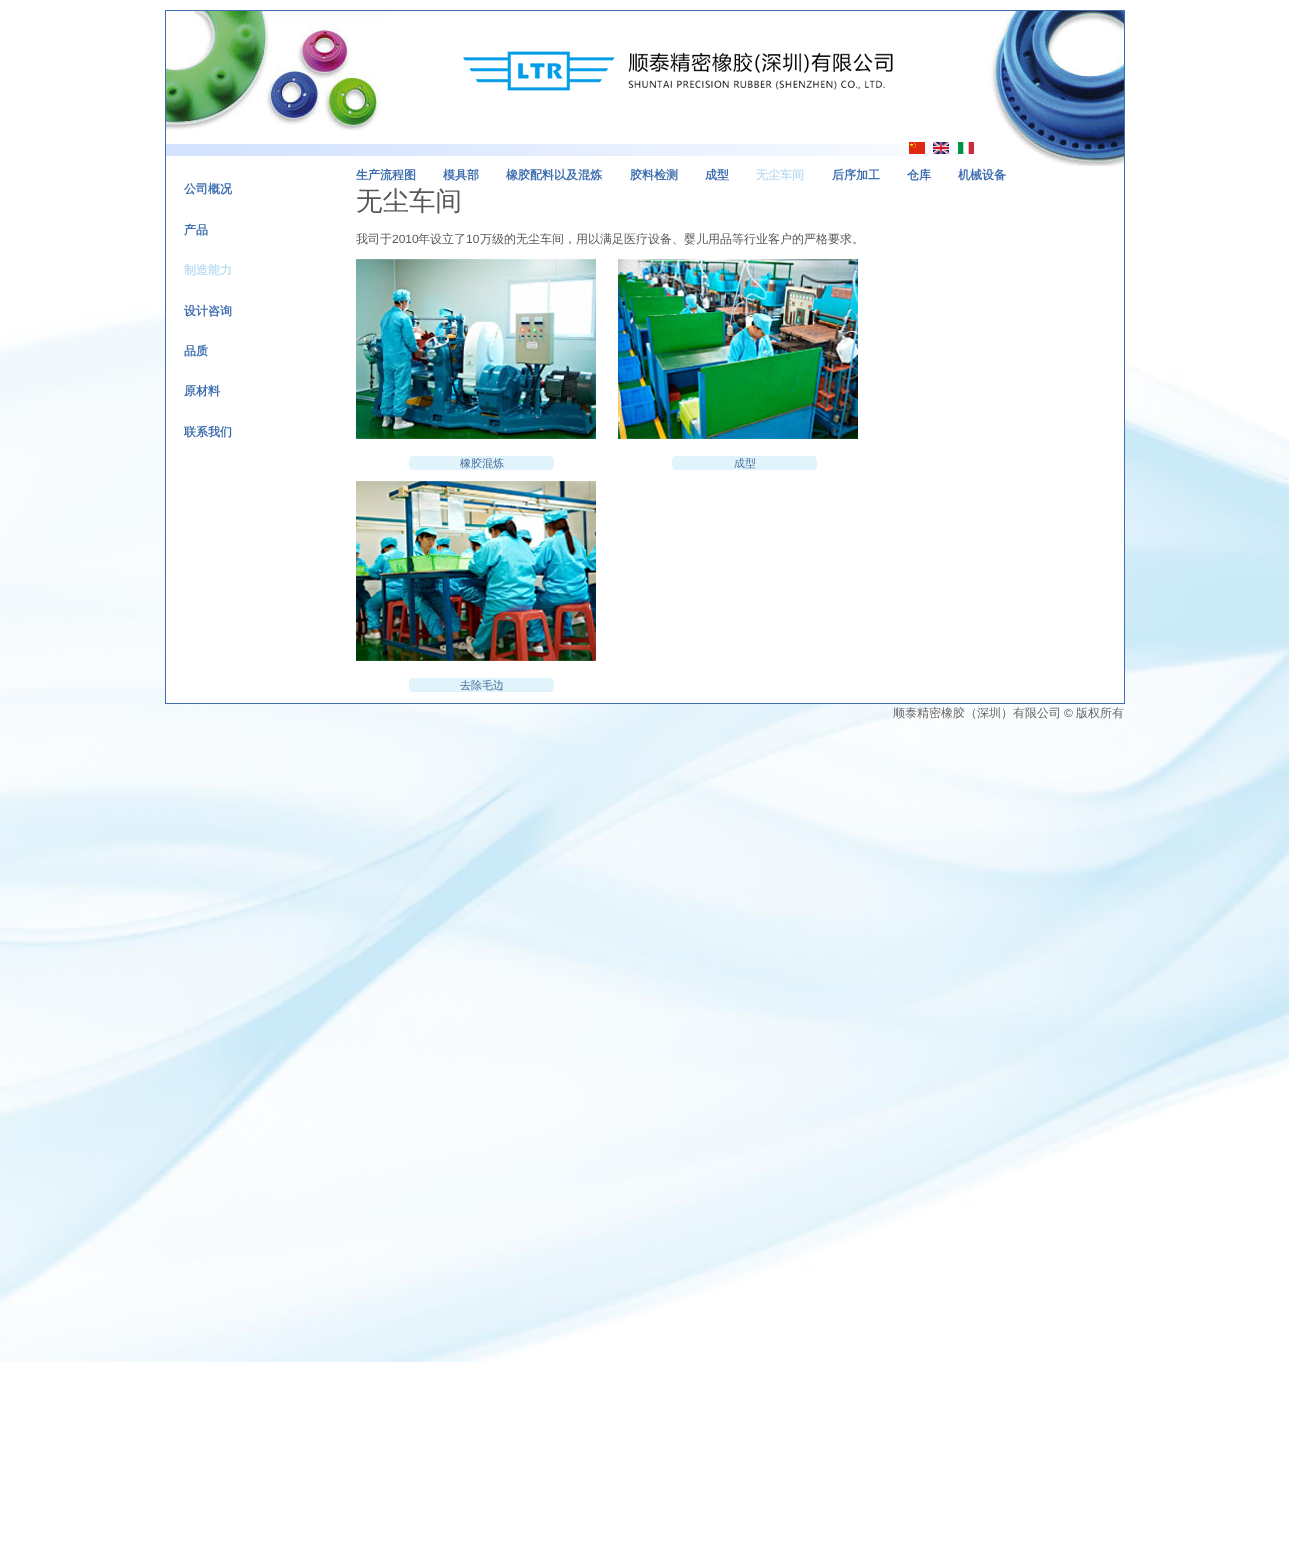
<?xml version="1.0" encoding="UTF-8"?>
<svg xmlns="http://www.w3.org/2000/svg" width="1289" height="1557">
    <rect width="100%" height="100%" fill="#FFFFFF"/>
    <image x="0" y="284" width="1289" height="1078" href="img_01.png"/>
    <image x="166" y="11" width="958" height="155" href="img_02.png"/>
    <rect x="165" y="10" width="960" height="1" fill="#416CB0"/>
    <rect x="1124" y="10" width="1" height="694" fill="#416CB0"/>
    <rect x="165" y="10" width="1" height="156" fill="#416CB0"/>
    <image x="463" y="51" width="430" height="40" href="img_03.png"/>
    <image x="166" y="144" width="801" height="12" href="img_04.png"/>
    <image x="909" y="142" width="16" height="12" href="img_05.png"/>
    <image x="933" y="142" width="16" height="12" href="img_06.png"/>
    <image x="958" y="142" width="16" height="12" href="img_07.png"/>
    <rect x="166" y="284" width="958" height="419" fill="#FFFFFF"/>
    <rect x="165" y="703" width="960" height="1" fill="#416CB0"/>
    <rect x="165" y="166" width="1" height="538" fill="#416CB0"/>
    <text x="184" y="193" font-family="WenQuanYi Zen Hei" font-size="12" font-weight="700" fill="#3E6EAF">公司概况</text>
    <text x="184" y="234" font-family="WenQuanYi Zen Hei" font-size="12" font-weight="700" fill="#3E6EAF">产品</text>
    <text x="184" y="274" font-family="WenQuanYi Zen Hei" font-size="12" font-weight="700" fill="#BDDDF2">制造能力</text>
    <text x="184" y="315" font-family="WenQuanYi Zen Hei" font-size="12" font-weight="700" fill="#3E6EAF">设计咨询</text>
    <text x="184" y="355" font-family="WenQuanYi Zen Hei" font-size="12" font-weight="700" fill="#3E6EAF">品质</text>
    <text x="184" y="395" font-family="WenQuanYi Zen Hei" font-size="12" font-weight="700" fill="#3E6EAF">原材料</text>
    <text x="184" y="436" font-family="WenQuanYi Zen Hei" font-size="12" font-weight="700" fill="#3E6EAF">联系我们</text>
    <text x="356" y="179" font-family="WenQuanYi Zen Hei" font-size="12" font-weight="700" fill="#3E6EAF">生产流程图</text>
    <text x="443" y="179" font-family="WenQuanYi Zen Hei" font-size="12" font-weight="700" fill="#3E6EAF">模具部</text>
    <text x="506" y="179" font-family="WenQuanYi Zen Hei" font-size="12" font-weight="700" fill="#3E6EAF">橡胶配料以及混炼</text>
    <text x="630" y="179" font-family="WenQuanYi Zen Hei" font-size="12" font-weight="700" fill="#3E6EAF">胶料检测</text>
    <text x="705" y="179" font-family="WenQuanYi Zen Hei" font-size="12" font-weight="700" fill="#3E6EAF">成型</text>
    <text x="756" y="179" font-family="WenQuanYi Zen Hei" font-size="12" font-weight="700" fill="#BDDDF2">无尘车间</text>
    <text x="832" y="179" font-family="WenQuanYi Zen Hei" font-size="12" font-weight="700" fill="#3E6EAF">后序加工</text>
    <text x="907" y="179" font-family="WenQuanYi Zen Hei" font-size="12" font-weight="700" fill="#3E6EAF">仓库</text>
    <text x="958" y="179" font-family="WenQuanYi Zen Hei" font-size="12" font-weight="700" fill="#3E6EAF">机械设备</text>
    <text x="356" y="210" font-family="WenQuanYi Zen Hei" font-size="26.5" font-weight="500" fill="#58585A">无尘车间</text>
    <text x="356" y="243" font-family="WenQuanYi Zen Hei" font-size="12" font-weight="500" fill="#58585A">我司于</text>
    <text x="392" y="243" font-family="Liberation Sans" font-size="12" fill="#58585A">2010</text>
    <text x="418" y="243" font-family="WenQuanYi Zen Hei" font-size="12" font-weight="500" fill="#58585A">年设立了</text>
    <text x="466" y="243" font-family="Liberation Sans" font-size="12" fill="#58585A">10</text>
    <text x="480" y="243" font-family="WenQuanYi Zen Hei" font-size="12" font-weight="500" fill="#58585A">万级的无尘车间，用以满足医疗设备、婴儿用品等行业客户的严格要求。</text>
    <image x="356" y="259" width="240" height="180" href="img_08.png"/>
    <image x="409" y="456" width="145" height="14" href="img_09.png"/>
    <text x="460" y="467" font-family="WenQuanYi Zen Hei" font-size="11" font-weight="500" fill="#476D9A">橡胶混炼</text>
    <image x="618" y="259" width="240" height="180" href="img_10.png"/>
    <image x="672" y="456" width="145" height="14" href="img_09.png"/>
    <text x="734" y="467" font-family="WenQuanYi Zen Hei" font-size="11" font-weight="500" fill="#476D9A">成型</text>
    <image x="356" y="481" width="240" height="180" href="img_11.png"/>
    <image x="409" y="678" width="145" height="14" href="img_09.png"/>
    <text x="460" y="689" font-family="WenQuanYi Zen Hei" font-size="11" font-weight="500" fill="#476D9A">去除毛边</text>
    <text x="893" y="717" font-family="WenQuanYi Zen Hei" font-size="12" font-weight="500" fill="#666666">顺泰精密橡胶（深圳）有限公司</text>
    <text x="1064" y="717" font-family="Liberation Sans" font-size="12" fill="#666666">©</text>
    <text x="1076" y="717" font-family="WenQuanYi Zen Hei" font-size="12" font-weight="500" fill="#666666">版权所有</text>
</svg>
